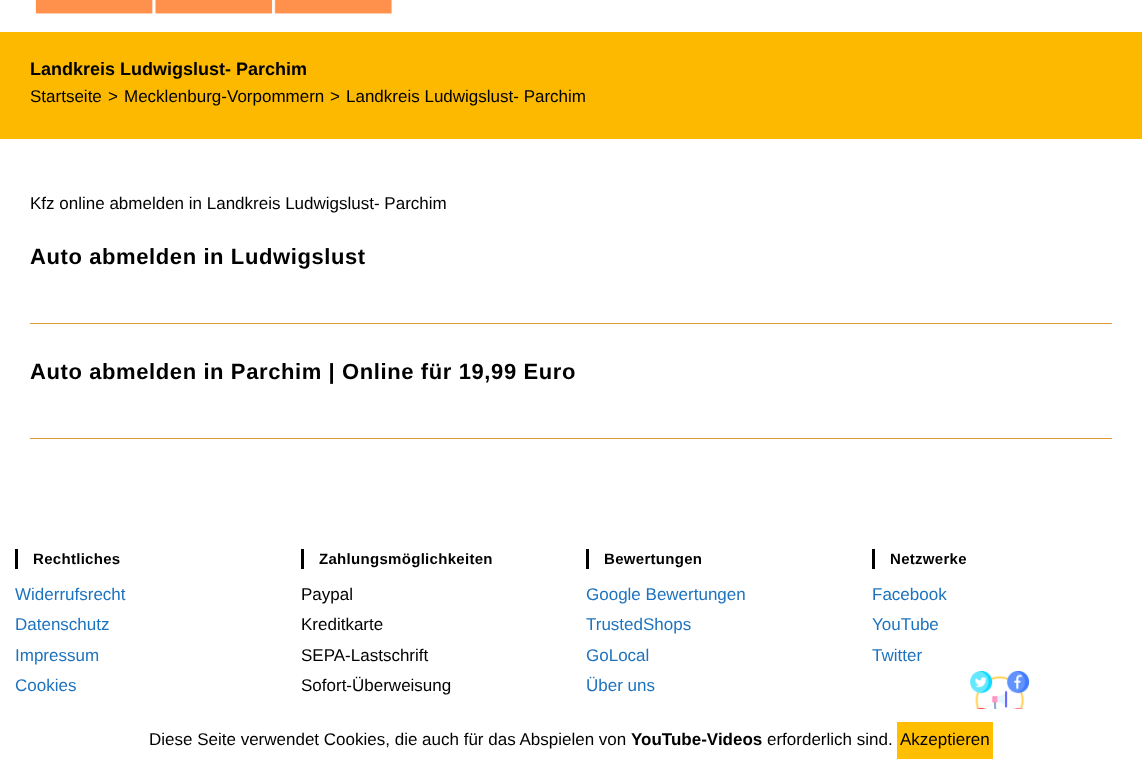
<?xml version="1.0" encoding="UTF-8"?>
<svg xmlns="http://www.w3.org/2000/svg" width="1142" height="762">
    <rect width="100%" height="100%" fill="#FFFFFF"/>
    <image x="35" y="0" width="357" height="14" href="img_01.png"/>
    <rect x="0" y="32" width="1142" height="107" fill="#FCB900"/>
    <text x="30" y="75" font-family="Liberation Sans" font-size="18" font-weight="700" fill="#000000">Landkreis Ludwigslust- Parchim</text>
    <text x="30" y="102" font-family="Liberation Sans" font-size="17" fill="#000000">Startseite</text>
    <text x="108" y="102" font-family="Liberation Sans" font-size="17" fill="#000000">&gt;</text>
    <text x="124" y="102" font-family="Liberation Sans" font-size="17" fill="#000000">Mecklenburg-Vorpommern</text>
    <text x="330" y="102" font-family="Liberation Sans" font-size="17" fill="#000000">&gt;</text>
    <text x="346" y="102" font-family="Liberation Sans" font-size="17" fill="#000000">Landkreis Ludwigslust- Parchim</text>
    <text x="30" y="209" font-family="Liberation Sans" font-size="17" fill="#000000">Kfz online abmelden in Landkreis Ludwigslust- Parchim</text>
    <rect x="30" y="323" width="1082" height="1" fill="#DD9933"/>
    <text x="30" y="264" font-family="Liberation Sans" font-size="22" font-weight="700" letter-spacing="0.6" fill="#000000">Auto abmelden in Ludwigslust</text>
    <rect x="30" y="438" width="1082" height="1" fill="#DD9933"/>
    <text x="30" y="379" font-family="Liberation Sans" font-size="22" font-weight="700" letter-spacing="0.6" fill="#000000">Auto abmelden in Parchim | Online für 19,99 Euro</text>
    <rect x="15" y="549" width="3" height="20" fill="#000000"/>
    <text x="33" y="564" font-family="Liberation Sans" font-size="15" font-weight="700" letter-spacing="0.3" fill="#000000">Rechtliches</text>
    <text font-family="Liberation Sans" font-size="17" fill="#1E73BE">
        <tspan x="15" y="600">Widerrufsrecht</tspan>
        <tspan x="15" y="630">Datenschutz</tspan>
        <tspan x="15" y="661">Impressum</tspan>
        <tspan x="15" y="691">Cookies</tspan>
    </text>
    <rect x="301" y="549" width="3" height="20" fill="#000000"/>
    <text x="319" y="564" font-family="Liberation Sans" font-size="15" font-weight="700" letter-spacing="0.3" fill="#000000">Zahlungsmöglichkeiten</text>
    <text font-family="Liberation Sans" font-size="17" fill="#000000">
        <tspan x="301" y="600">Paypal</tspan>
        <tspan x="301" y="630">Kreditkarte</tspan>
        <tspan x="301" y="661">SEPA-Lastschrift</tspan>
        <tspan x="301" y="691">Sofort-Überweisung</tspan>
    </text>
    <rect x="586" y="549" width="3" height="20" fill="#000000"/>
    <text x="604" y="564" font-family="Liberation Sans" font-size="15" font-weight="700" letter-spacing="0.3" fill="#000000">Bewertungen</text>
    <text font-family="Liberation Sans" font-size="17" fill="#1E73BE">
        <tspan x="586" y="600">Google Bewertungen</tspan>
        <tspan x="586" y="630">TrustedShops</tspan>
        <tspan x="586" y="661">GoLocal</tspan>
        <tspan x="586" y="691">Über uns</tspan>
    </text>
    <rect x="872" y="549" width="3" height="20" fill="#000000"/>
    <text x="890" y="564" font-family="Liberation Sans" font-size="15" font-weight="700" letter-spacing="0.3" fill="#000000">Netzwerke</text>
    <text font-family="Liberation Sans" font-size="17" fill="#1E73BE">
        <tspan x="872" y="600">Facebook</tspan>
        <tspan x="872" y="630">YouTube</tspan>
        <tspan x="872" y="661">Twitter</tspan>
    </text>
    <image x="970" y="671" width="59" height="38" href="img_02.png"/>
    <text x="149" y="745" font-family="Liberation Sans" font-size="17" fill="#000000">Diese Seite verwendet Cookies, die auch für das Abspielen von</text>
    <text x="631" y="745" font-family="Liberation Sans" font-size="17" font-weight="700" fill="#000000">YouTube-Videos</text>
    <text x="767" y="745" font-family="Liberation Sans" font-size="17" fill="#000000">erforderlich sind.</text>
    <rect x="897" y="722" width="96" height="37" fill="#FFBF00"/>
    <text x="900" y="745" font-family="Liberation Sans" font-size="17" fill="#000000">Akzeptieren</text>
</svg>
